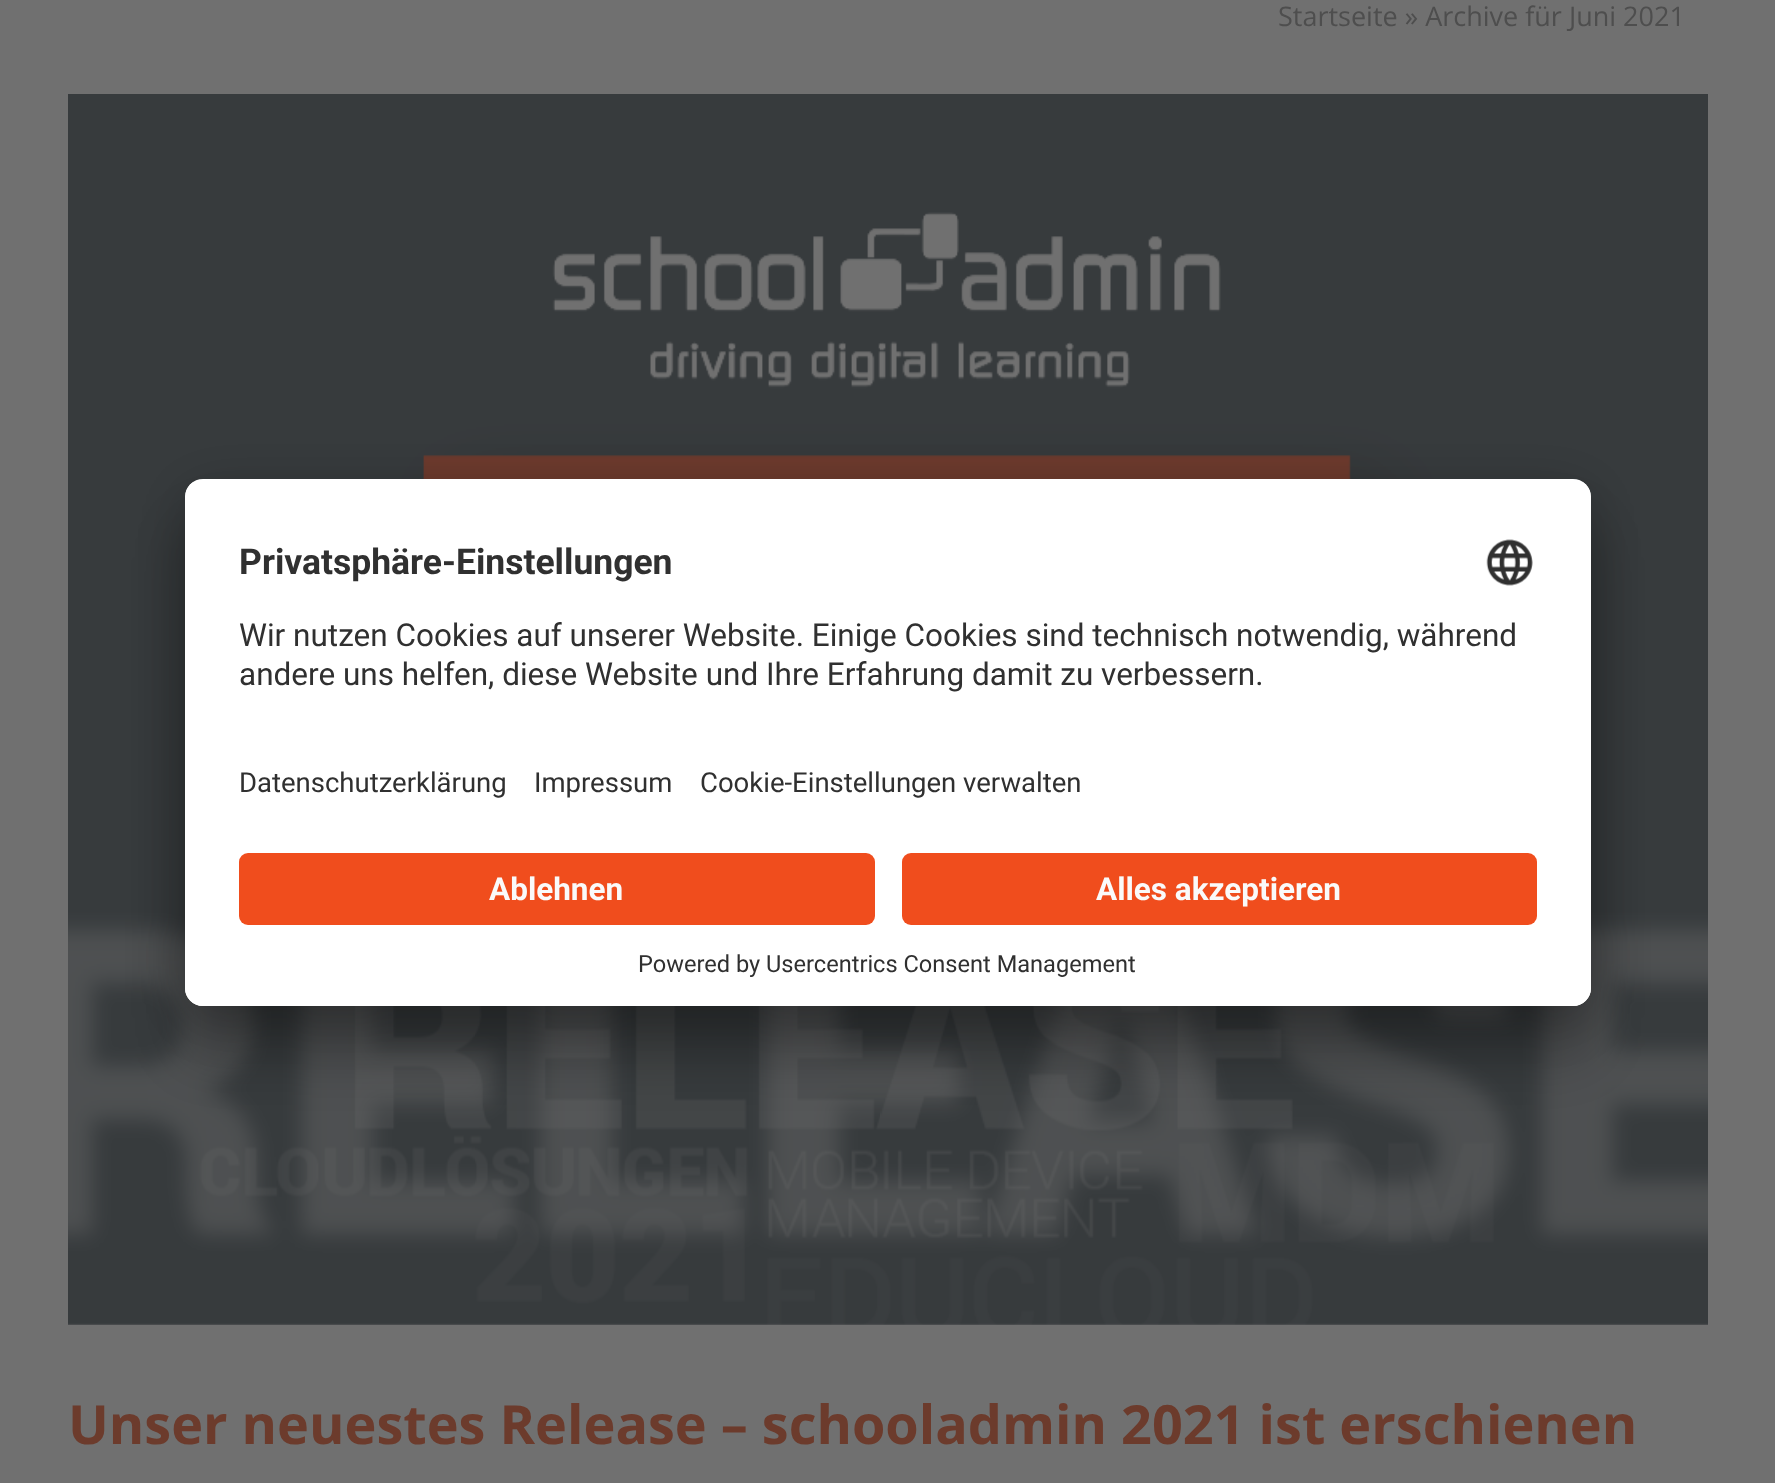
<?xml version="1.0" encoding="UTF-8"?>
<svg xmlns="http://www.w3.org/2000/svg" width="1775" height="1483">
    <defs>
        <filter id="blur1" x="-50%" y="-200%" width="200%" height="500%"><feGaussianBlur stdDeviation="31.5"/></filter>
        <filter id="blur2" x="-50%" y="-200%" width="200%" height="500%"><feGaussianBlur stdDeviation="29"/></filter>
        <clipPath id="clip1"><rect x="185" y="479" width="1406" height="527" rx="18"/></clipPath>
        <clipPath id="clip2"><path d="M 203 479 H 1573 C 1583 479 1591 487 1591 497 V 835 H 185 V 497 C 185 487 193 479 203 479 Z"/></clipPath>
    </defs>
    <rect width="100%" height="100%" fill="#707070"/>
    <text x="1278" y="26" font-family="Open Sans" font-size="27" fill="#4E4E4E">Startseite » Archive für Juni 2021</text>
    <image x="68" y="94" width="1640" height="1231" href="img_01.png"/>
    <text x="68" y="1444" font-family="Open Sans" font-size="54" font-weight="700" fill="#6C3B2C">Unser neuestes Release – schooladmin 2021 ist erschienen</text>
    <rect x="185" y="524" width="1406" height="527" rx="18" fill="#000000" fill-opacity="0.3" filter="url(#blur1)"/>
    <rect x="185" y="491" width="1406" height="526" rx="18" fill="#000000" fill-opacity="0.22" filter="url(#blur2)"/>
    <rect x="185" y="479" width="1406" height="527" rx="18" fill="#FFFFFF"/>
    <g clip-path="url(#clip1)">
        <g clip-path="url(#clip2)">
            <rect x="185" y="482" width="1406" height="353" fill="#FFFFFF"/>
        </g>
    </g>
    <text x="239" y="574" font-family="Roboto" font-size="35.5" font-weight="700" fill="#303030">Privatsphäre-Einstellungen</text>
    <image x="1486" y="539" width="47" height="47" href="img_02.png"/>
    <text font-family="Roboto" font-size="31.5" fill="#303030">
        <tspan x="239" y="646">Wir nutzen Cookies auf unserer Website. Einige Cookies sind technisch notwendig, während</tspan>
        <tspan x="239" y="685">andere uns helfen, diese Website und Ihre Erfahrung damit zu verbessern.</tspan>
    </text>
    <text x="239" y="792" font-family="Roboto" font-size="27.5" fill="#303030">Datenschutzerklärung</text>
    <text x="534" y="792" font-family="Roboto" font-size="27.5" fill="#303030">Impressum</text>
    <text x="700" y="792" font-family="Roboto" font-size="27.5" fill="#303030">Cookie-Einstellungen verwalten</text>
    <path d="M 185 835 H 1591 V 988 C 1591 998 1583 1006 1573 1006 H 203 C 193 1006 185 998 185 988 Z" fill="#FFFFFF"/>
    <rect x="239" y="853" width="636" height="72" rx="9" fill="#F04D1D"/>
    <text x="489" y="900" font-family="Roboto" font-size="31.5" font-weight="700" fill="#FAFAFA">Ablehnen</text>
    <rect x="902" y="853" width="635" height="72" rx="9" fill="#F04D1D"/>
    <text x="1096" y="900" font-family="Roboto" font-size="31.5" font-weight="700" fill="#FAFAFA">Alles akzeptieren</text>
    <text x="638" y="972" font-family="Roboto" font-size="23.6" fill="#303030">Powered by Usercentrics Consent Management</text>
</svg>
